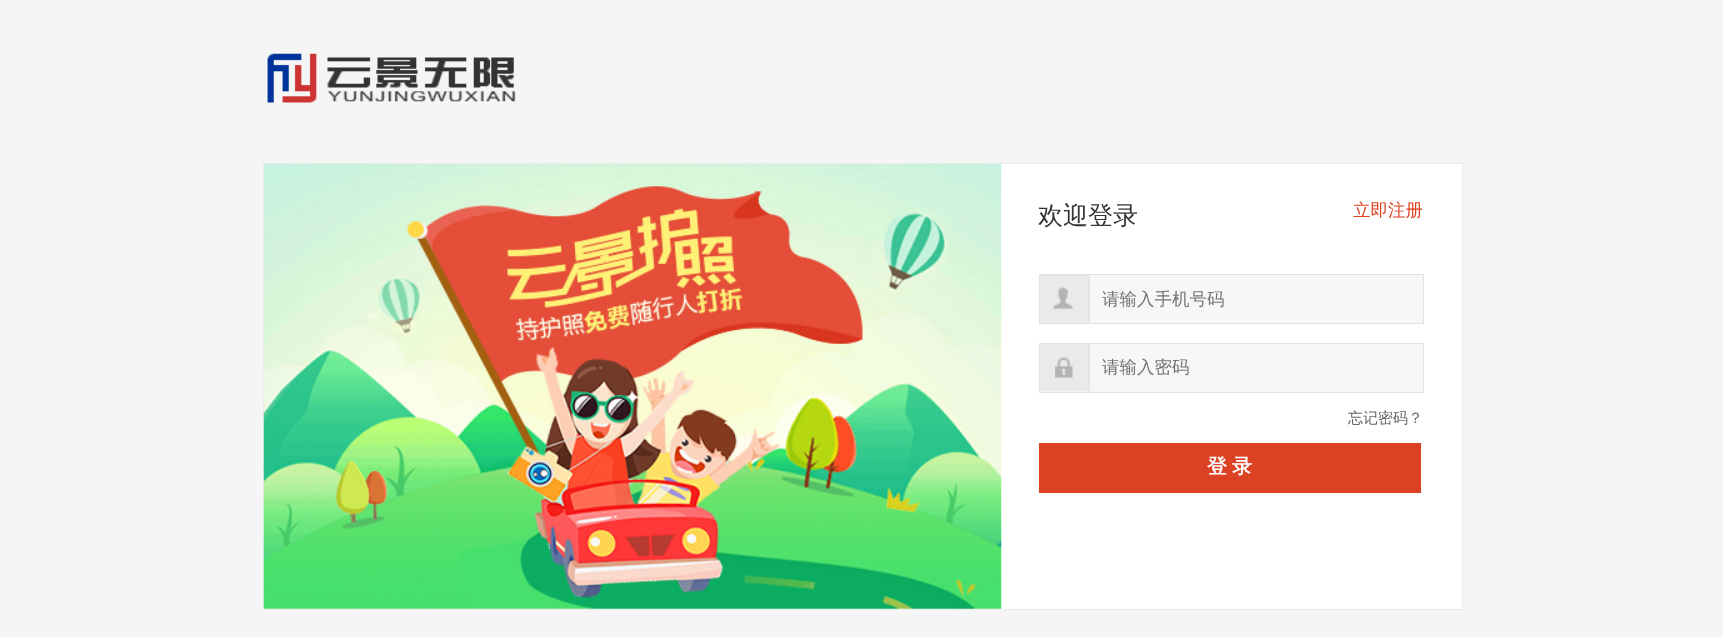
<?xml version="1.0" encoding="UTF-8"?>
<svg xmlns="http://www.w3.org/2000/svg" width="1723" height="637">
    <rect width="100%" height="100%" fill="#F5F5F5"/>
    <image x="267" y="53" width="249" height="50" href="img_01.png"/>
    <rect x="263.5" y="163.5" width="1199" height="446" fill="#FFFFFF" stroke="#ECECEC"/>
    <image x="263" y="163" width="739" height="446" href="img_02.png"/>
    <text x="1038" y="224" font-family="WenQuanYi Zen Hei" font-size="25" font-weight="500" fill="#333333">欢迎登录</text>
    <text x="1353" y="216" font-family="WenQuanYi Zen Hei" font-size="17.5" font-weight="500" fill="#DD4124">立即注册</text>
    <rect x="1039.5" y="274.5" width="384" height="49" fill="#F5F7F8" stroke="#E1E1E1"/>
    <image x="1040" y="275" width="50" height="48" href="img_03.png"/>
    <text x="1102" y="305" font-family="WenQuanYi Zen Hei" font-size="17.5" font-weight="500" fill="#757575">请输入手机号码</text>
    <rect x="1039.5" y="343.5" width="384" height="49" fill="#F5F7F8" stroke="#E1E1E1"/>
    <image x="1040" y="344" width="50" height="48" href="img_04.png"/>
    <text x="1102" y="373" font-family="WenQuanYi Zen Hei" font-size="17.5" font-weight="500" fill="#757575">请输入密码</text>
    <text x="1348" y="423" font-family="WenQuanYi Zen Hei" font-size="15" font-weight="500" fill="#666666">忘记密码？</text>
    <rect x="1039" y="443" width="382" height="50" fill="#DD4124"/>
    <text x="1207" y="473" word-spacing="-1" font-family="WenQuanYi Zen Hei" font-size="20" font-weight="700" fill="#FFFFFF">登 录</text>
</svg>
